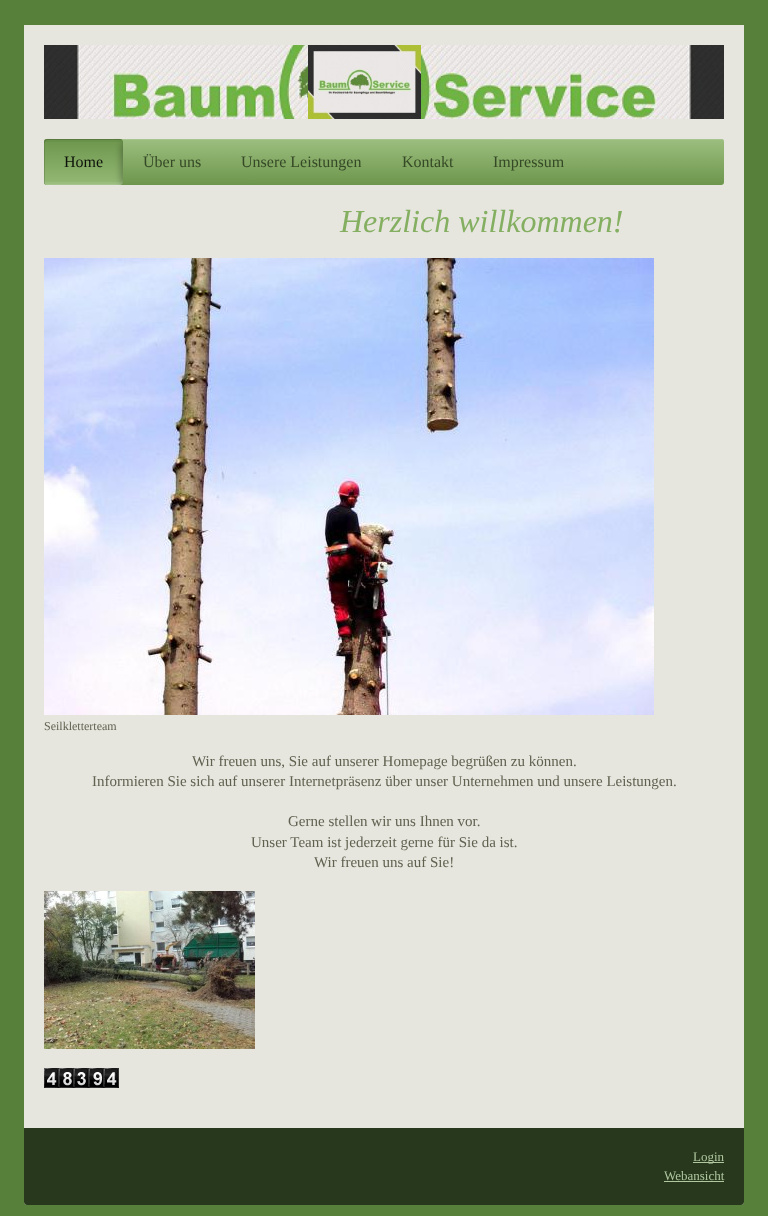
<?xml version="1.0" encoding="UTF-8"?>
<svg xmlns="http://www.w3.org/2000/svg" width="768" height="1216">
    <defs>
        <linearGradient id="g1" gradientUnits="userSpaceOnUse" x1="44" y1="139" x2="44" y2="185"><stop offset="0" stop-color="#9CBE7F"/><stop offset="1" stop-color="#6D964C"/></linearGradient>
        <linearGradient id="g2" gradientUnits="userSpaceOnUse" x1="44" y1="185" x2="44" y2="139"><stop offset="0" stop-color="#94B975"/><stop offset="1" stop-color="#6D964C"/></linearGradient>
        <clipPath id="clip1"><rect x="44" y="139" width="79" height="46" rx="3"/></clipPath>
        <filter id="blur1" x="-50%" y="-200%" width="200%" height="500%"><feGaussianBlur stdDeviation="3.5"/></filter>
    </defs>
    <rect width="100%" height="100%" fill="#57813B"/>
    <path d="M 24 25 H 744 V 1202 C 744 1203.5 742.5 1205 741 1205 H 27 C 25.5 1205 24 1203.5 24 1202 Z" fill="#E6E6DF"/>
    <image x="44" y="45" width="680" height="74" href="img_01.png"/>
    <image x="308" y="45" width="113" height="74" href="img_02.png"/>
    <rect x="44" y="139" width="680" height="46" rx="3" fill="url(#g1)"/>
    <path d="M 47 140 H 721 C 723 140 724 141 724 143 V 142 C 724 140 723 139 721 139 H 47 C 45 139 44 140 44 142 V 143 C 44 141 45 140 47 140 Z" fill="#81AD5E"/>
    <path d="M 47 140 H 721 C 723 140 724 141 724 143 V 142 C 724 140 723 139 721 139 H 47 C 45 139 44 140 44 142 V 143 C 44 141 45 140 47 140 Z" fill="#FFFFFF" fill-opacity="0.3"/>
    <rect x="44" y="139" width="79" height="46" rx="3" fill="url(#g2)"/>
    <path d="M 48 140 H 122 C 122 139 121 139 120 139 H 47 C 45 139 44 140 44 142 V 182 C 44 183 44 184 45 184 V 150 C 45 147 43 140 48 140 Z" fill="#000000" fill-opacity="0.15"/>
    <path d="M 47 142 H 120 C 122 142 123 143 123 145 C 123 136 118 139 108 139 H 59 C 49 139 44 136 44 145 C 44 143 45 142 47 142 Z" fill="#000000" fill-opacity="0.04"/>
    <path d="M 44 179 C 44 188 49 185 59 185 H 108 C 118 185 123 188 123 179 C 123 181 122 182 120 182 H 47 C 45 182 44 181 44 179 Z" fill="#FFFFFF" fill-opacity="0.08"/>
    <path d="M 44 181 C 44 188 55 185 59 185 H 108 C 112 185 123 188 123 181 C 123 183 122 184 120 184 H 47 C 45 184 44 183 44 181 Z" fill="#FFFFFF" fill-opacity="0.1"/>
    <text x="64" y="167" font-family="Liberation Serif" font-size="16" fill="#0D120A">Home</text>
    <g clip-path="url(#clip1)">
        <rect x="121" y="141" width="16" height="46" rx="8" fill="#000000" fill-opacity="0.3" filter="url(#blur1)"/>
    </g>
    <text x="143" y="167" font-family="Liberation Serif" font-size="16" fill="#364926">Über uns</text>
    <text x="241" y="167" font-family="Liberation Serif" font-size="16" fill="#364926">Unsere Leistungen</text>
    <text x="402" y="167" font-family="Liberation Serif" font-size="16" fill="#364926">Kontakt</text>
    <text x="493" y="167" font-family="Liberation Serif" font-size="16" fill="#364926">Impressum</text>
    <text x="340" y="232" font-family="Liberation Serif" font-size="32" font-style="italic" fill="#84AF61">Herzlich willkommen!</text>
    <image x="44" y="258" width="610" height="457" href="img_03.png"/>
    <text x="44" y="730" font-family="Liberation Serif" font-size="12" fill="#616150">Seilkletterteam</text>
    <text x="192" y="766" font-family="Liberation Serif" font-size="15" fill="#616150">Wir freuen uns, Sie auf unserer Homepage begrüßen zu können.</text>
    <text x="92" y="786" font-family="Liberation Serif" font-size="15" fill="#616150">Informieren Sie sich auf unserer Internetpräsenz über unser Unternehmen und unsere Leistungen.</text>
    <text x="288" y="826" font-family="Liberation Serif" font-size="15" fill="#616150">Gerne stellen wir uns Ihnen vor.</text>
    <text x="251" y="847" font-family="Liberation Serif" font-size="15" fill="#616150">Unser Team ist jederzeit gerne für Sie da ist.</text>
    <text x="314" y="867" font-family="Liberation Serif" font-size="15" fill="#616150">Wir freuen uns auf Sie!</text>
    <image x="44" y="891" width="211" height="158" href="img_04.png"/>
    <image x="44" y="1068" width="15" height="20" href="img_05.png"/>
    <image x="59" y="1068" width="15" height="20" href="img_06.png"/>
    <image x="74" y="1068" width="15" height="20" href="img_07.png"/>
    <image x="89" y="1068" width="15" height="20" href="img_08.png"/>
    <image x="104" y="1068" width="15" height="20" href="img_05.png"/>
    <path d="M 24 1128 H 744 V 1202 C 744 1203.5 742.5 1205 741 1205 H 27 C 25.5 1205 24 1203.5 24 1202 Z" fill="#27381C"/>
    <rect x="693" y="1162" width="31" height="1" fill="#B0C7A0"/>
    <text x="693" y="1161" font-family="Liberation Serif" font-size="13" fill="#B0C7A0">Login</text>
    <text x="664" y="1180" font-family="Liberation Serif" font-size="13" fill="#B0C7A0">Webansicht</text>
    <rect x="664" y="1181" width="60" height="1" fill="#B0C7A0"/>
</svg>
